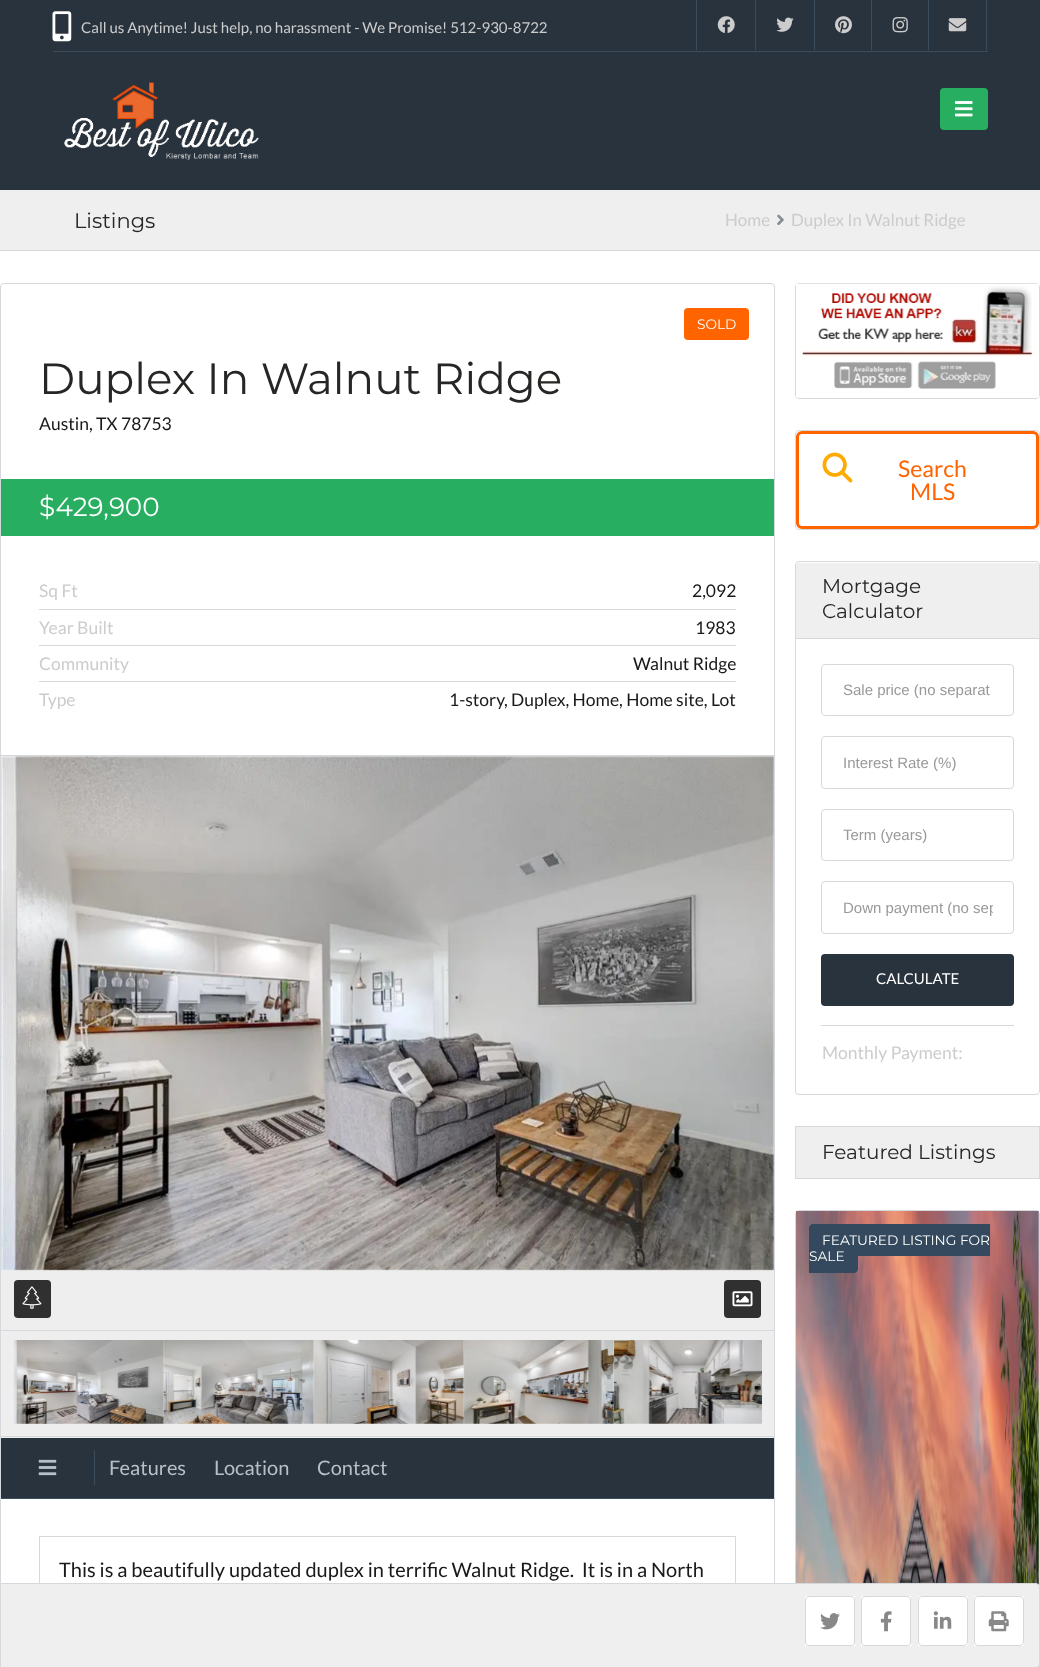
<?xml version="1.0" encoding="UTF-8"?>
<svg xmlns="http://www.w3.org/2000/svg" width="1040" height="1667">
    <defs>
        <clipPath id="clip1"><rect x="843" y="899" width="150" height="17"/></clipPath>
    </defs>
    <rect width="100%" height="100%" fill="#FFFFFF"/>
    <rect x="0" y="0" width="1040" height="190" fill="#29333D"/>
    <image x="64" y="82" width="195" height="78" href="img_01.png"/>
    <rect x="940" y="88" width="48" height="42" rx="4" fill="#27AE60"/>
    <image x="955" y="101" width="18" height="16" href="img_02.png"/>
    <rect x="53" y="51" width="935" height="1" fill="#3B4D5D"/>
    <image x="52" y="11" width="20" height="31" href="img_03.png"/>
    <text x="81" y="33" font-family="Lato" font-size="15" fill="#CCCCCC">Call us Anytime! Just help, no harassment - We Promise! 512-930-8722</text>
    <rect x="755" y="0" width="1" height="50" fill="#3B4D5D"/>
    <rect x="696" y="0" width="1" height="50" fill="#3B4D5D"/>
    <image x="717" y="16" width="18" height="17" href="img_04.png"/>
    <rect x="814" y="0" width="1" height="50" fill="#3B4D5D"/>
    <image x="776" y="17" width="18" height="15" href="img_05.png"/>
    <rect x="871" y="0" width="1" height="50" fill="#3B4D5D"/>
    <image x="835" y="16" width="17" height="18" href="img_06.png"/>
    <rect x="928" y="0" width="1" height="50" fill="#3B4D5D"/>
    <image x="892" y="17" width="16" height="16" href="img_07.png"/>
    <rect x="986" y="0" width="1" height="50" fill="#3B4D5D"/>
    <image x="948" y="18" width="19" height="14" href="img_08.png"/>
    <rect x="0" y="190" width="1040" height="60" fill="#EFEFEF"/>
    <rect x="0" y="250" width="1040" height="1" fill="#D5D9DD"/>
    <text x="74" y="228" font-family="Montserrat" font-size="21" fill="#262624">Listings</text>
    <text x="725" y="226" font-family="Lato" font-size="17" fill="#CCCCCC">Home</text>
    <image x="777" y="214" width="7" height="12" href="img_09.png"/>
    <text x="791" y="226" font-family="Lato" font-size="17" fill="#CCCCCC">Duplex In Walnut Ridge</text>
    <rect x="0.5" y="283.5" width="774" height="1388" rx="3.5" fill="none" stroke="#D5D9DD"/>
    <rect x="684" y="308" width="65" height="32" rx="4" fill="#FF6400"/>
    <text x="697" y="329" font-family="Montserrat" font-size="13.75" fill="#FFFFFF">SOLD</text>
    <text x="39" y="394" font-family="Montserrat" font-size="43.75" fill="#262624">Duplex In Walnut Ridge</text>
    <text x="39" y="430" font-family="Lato" font-size="17.5" fill="#191919">Austin, TX 78753</text>
    <rect x="1" y="479" width="773" height="57" fill="#27AE60"/>
    <text x="39" y="516" font-family="Montserrat" font-size="26.25" fill="#FFFFFF">$429,900</text>
    <rect x="1" y="755" width="773" height="1" fill="#D5D9DD"/>
    <rect x="39" y="609" width="697" height="1" fill="#D5D9DD"/>
    <text x="39" y="597" font-family="Lato" font-size="17.5" fill="#CCCCCC">Sq Ft</text>
    <text x="692" y="597" font-family="Lato" font-size="17.5" fill="#191919">2,092</text>
    <rect x="39" y="645" width="697" height="1" fill="#D5D9DD"/>
    <text x="39" y="634" font-family="Lato" font-size="17.5" fill="#CCCCCC">Year Built</text>
    <text x="695" y="634" font-family="Lato" font-size="17.5" fill="#191919">1983</text>
    <rect x="39" y="681" width="697" height="1" fill="#D5D9DD"/>
    <text x="39" y="670" font-family="Lato" font-size="17.5" fill="#CCCCCC">Community</text>
    <text x="633" y="670" font-family="Lato" font-size="17.5" fill="#191919">Walnut Ridge</text>
    <text x="39" y="706" font-family="Lato" font-size="17.5" fill="#CCCCCC">Type</text>
    <text x="449" y="706" font-family="Lato" font-size="17.5" fill="#191919">1-story, Duplex, Home, Home site, Lot</text>
    <rect x="1" y="756" width="773" height="682" fill="#EEEEEE"/>
    <rect x="1" y="1330" width="773" height="1" fill="#D5D9DD"/>
    <image x="1" y="756" width="773" height="515" href="img_10.png"/>
    <rect x="14" y="1280" width="37" height="38" rx="4" fill="#303030"/>
    <image x="22" y="1286" width="20" height="23" href="img_11.png"/>
    <rect x="724" y="1280" width="37" height="38" rx="4" fill="#303030"/>
    <image x="732" y="1291" width="21" height="16" href="img_12.png"/>
    <rect x="1" y="1436" width="773" height="1" fill="#D5D9DD"/>
    <image x="13" y="1340" width="151" height="84" href="img_13.png"/>
    <image x="163" y="1340" width="151" height="84" href="img_14.png"/>
    <image x="313" y="1340" width="151" height="84" href="img_15.png"/>
    <image x="463" y="1340" width="151" height="84" href="img_16.png"/>
    <image x="614" y="1340" width="148" height="84" href="img_17.png"/>
    <rect x="1" y="1438" width="773" height="60" fill="#29333D"/>
    <rect x="1" y="1498" width="773" height="1" fill="#3B4D5D"/>
    <rect x="94" y="1450" width="1" height="35" fill="#3B4D5D"/>
    <image x="38" y="1459" width="19" height="17" href="img_18.png"/>
    <text x="109" y="1475" font-family="Lato" font-size="20" fill="#B9BFC6">Features</text>
    <text x="214" y="1475" font-family="Lato" font-size="20" fill="#B9BFC6">Location</text>
    <text x="317" y="1475" font-family="Lato" font-size="20" fill="#B9BFC6">Contact</text>
    <rect x="39" y="1536" width="697" height="1" fill="#D5D9DD"/>
    <rect x="735" y="1536" width="1" height="47" fill="#D5D9DD"/>
    <rect x="39" y="1536" width="1" height="47" fill="#D5D9DD"/>
    <text x="59" y="1577" font-family="Lato" font-size="20" fill="#191919" xml:space="preserve">This is a beautifully updated duplex in terrific Walnut Ridge.  It is in a North</text>
    <rect x="795.5" y="283.5" width="244" height="115" rx="3.5" fill="none" stroke="#D5D9DD"/>
    <image x="796" y="283" width="243" height="115" href="img_19.png"/>
    <rect x="795.5" y="430.5" width="244" height="99" rx="3.5" fill="none" stroke="#D5D9DD"/>
    <rect x="797.5" y="432.5" width="240" height="95" rx="4.5" fill="none" stroke="#FF6400" stroke-width="3"/>
    <image x="822" y="452" width="31" height="31" href="img_20.png"/>
    <text x="898" y="477" font-family="Lato" font-size="23" fill="#FF6400">Search</text>
    <text x="910" y="500" font-family="Lato" font-size="23" fill="#FF6400">MLS</text>
    <rect x="795.5" y="561.5" width="244" height="533" rx="3.5" fill="none" stroke="#D5D9DD"/>
    <rect x="796" y="563" width="243" height="75" fill="#EFEFEF"/>
    <rect x="796" y="638" width="243" height="1" fill="#D5D9DD"/>
    <text font-family="Montserrat" font-size="20" fill="#262624">
        <tspan x="822" y="593">Mortgage</tspan>
        <tspan x="822" y="618">Calculator</tspan>
    </text>
    <rect x="821.5" y="664.5" width="192" height="51" rx="3.5" fill="none" stroke="#D5D9DD"/>
    <text x="843" y="695" font-family="Liberation Sans" font-size="15" fill="#999999">Sale price (no separat</text>
    <rect x="821.5" y="736.5" width="192" height="52" rx="3.5" fill="none" stroke="#D5D9DD"/>
    <text x="843" y="768" font-family="Liberation Sans" font-size="15" fill="#999999">Interest Rate (%)</text>
    <rect x="821.5" y="809.5" width="192" height="51" rx="3.5" fill="none" stroke="#D5D9DD"/>
    <text x="843" y="840" font-family="Liberation Sans" font-size="15" fill="#999999">Term (years)</text>
    <rect x="821.5" y="881.5" width="192" height="52" rx="3.5" fill="none" stroke="#D5D9DD"/>
    <g clip-path="url(#clip1)">
        <text x="843" y="913" font-family="Liberation Sans" font-size="15" fill="#999999">Down payment (no sep</text>
    </g>
    <rect x="821" y="954" width="193" height="52" rx="4" fill="#29333D"/>
    <text x="876" y="984" font-family="Lato" font-size="15" fill="#FFFFFF">CALCULATE</text>
    <rect x="821" y="1025" width="193" height="1" fill="#D5D9DD"/>
    <text x="822" y="1059" font-family="Lato" font-size="17.5" fill="#CCCCCC">Monthly Payment:</text>
    <rect x="795.5" y="1126.5" width="244" height="52" fill="#EFEFEF" stroke="#D5D9DD"/>
    <text x="822" y="1159" font-family="Montserrat" font-size="20" fill="#262624">Featured Listings</text>
    <rect x="795.5" y="1210.5" width="244" height="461" rx="3.5" fill="none" stroke="#D5D9DD"/>
    <image x="796" y="1211" width="243" height="456" href="img_21.png"/>
    <path d="M 813 1224 H 990 V 1256 H 813 C 811 1256 809 1254 809 1252 V 1228 C 809 1226 811 1224 813 1224 Z" fill="#34495E"/>
    <path d="M 809 1240 H 854 C 856 1240 858 1242 858 1244 V 1269 C 858 1271 856 1273 854 1273 H 809 Z" fill="#34495E"/>
    <text x="822" y="1245" font-family="Montserrat" font-size="13.75" fill="#FFFFFF">FEATURED LISTING FOR</text>
    <text x="809" y="1261" font-family="Montserrat" font-size="13.75" fill="#FFFFFF">SALE</text>
    <path d="M 0.5 1583.5 H 1036 C 1038 1583.5 1039.5 1585 1039.5 1587 V 1664 C 1039.5 1666 1038 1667.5 1036 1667.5 H 0.5 Z" fill="#EFEFEF" stroke="#D5D9DD"/>
    <rect x="805" y="1596" width="50" height="50" fill="#FFFFFF"/>
    <rect x="805.5" y="1596.5" width="49" height="49" rx="3.5" fill="none" stroke="#D5D9DD"/>
    <image x="820" y="1613" width="20" height="17" href="img_22.png"/>
    <rect x="861" y="1596" width="50" height="50" fill="#FFFFFF"/>
    <rect x="861.5" y="1596.5" width="49" height="49" rx="3.5" fill="none" stroke="#D5D9DD"/>
    <image x="880" y="1611" width="12" height="21" href="img_23.png"/>
    <rect x="918" y="1596" width="50" height="50" fill="#FFFFFF"/>
    <rect x="918.5" y="1596.5" width="49" height="49" rx="3.5" fill="none" stroke="#D5D9DD"/>
    <image x="933" y="1611" width="19" height="18" href="img_24.png"/>
    <rect x="974" y="1596" width="50" height="50" fill="#FFFFFF"/>
    <rect x="974.5" y="1596.5" width="49" height="49" rx="3.5" fill="none" stroke="#D5D9DD"/>
    <image x="988" y="1611" width="21" height="21" href="img_25.png"/>
</svg>
